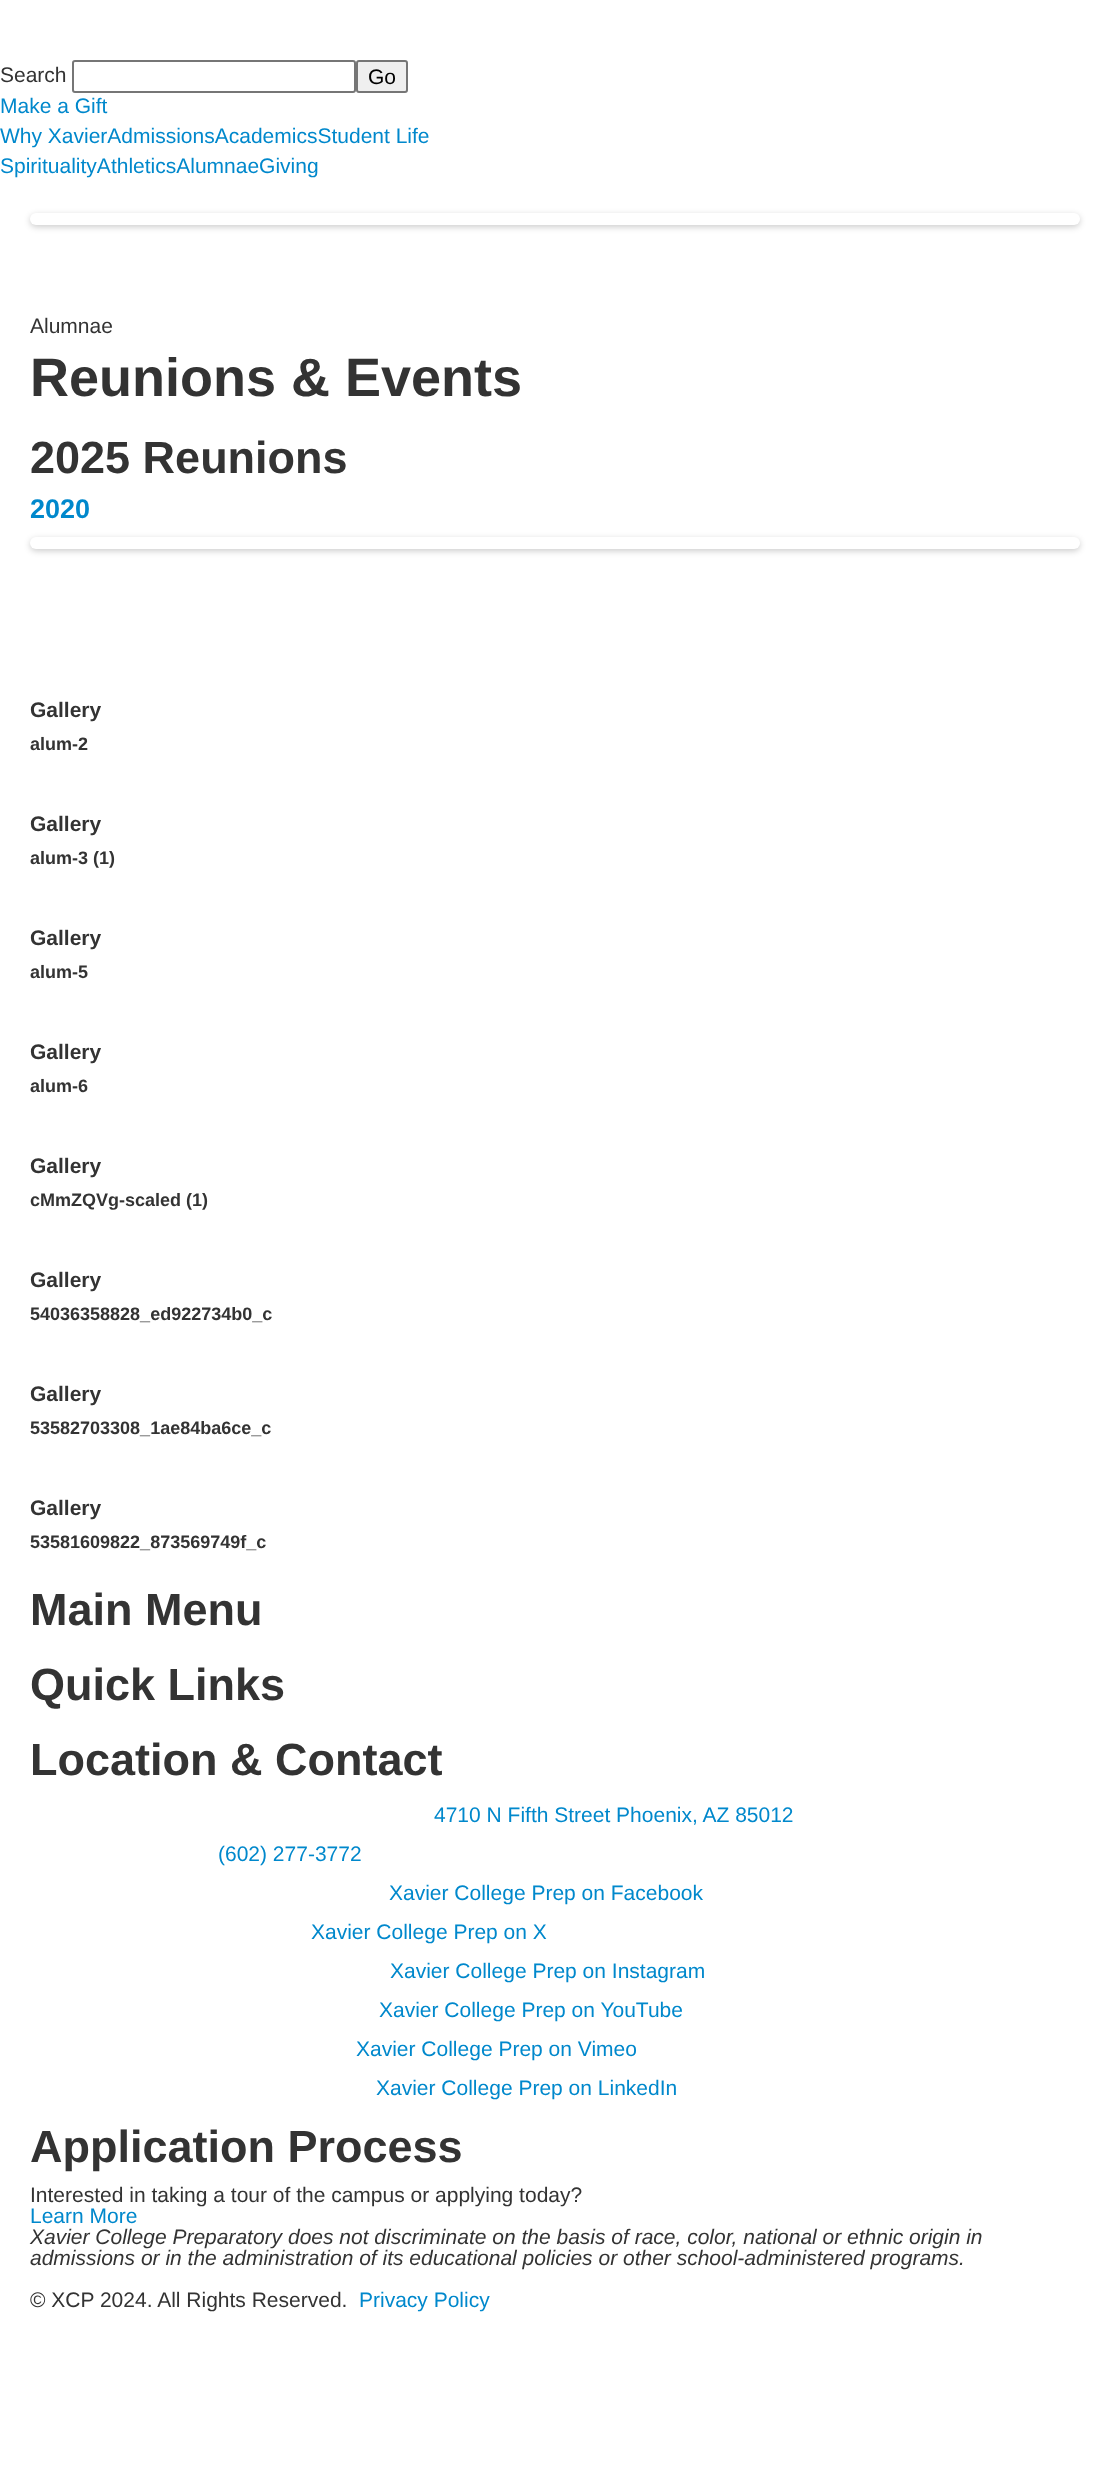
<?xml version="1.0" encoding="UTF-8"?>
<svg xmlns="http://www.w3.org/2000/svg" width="1110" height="2467">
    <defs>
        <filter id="blur1" x="-50%" y="-200%" width="200%" height="500%"><feGaussianBlur stdDeviation="3"/></filter>
    </defs>
    <rect width="100%" height="100%" fill="#FFFFFF"/>
    <text x="0" y="82" font-family="Liberation Sans" font-size="21" fill="#333333">Search</text>
    <rect x="73" y="61" width="282" height="31" rx="2" fill="none" stroke="#767676" stroke-width="2"/>
    <rect x="357" y="61" width="50" height="31" rx="2" fill="#EFEFEF" stroke="#767676" stroke-width="2"/>
    <text x="368" y="84" font-family="Liberation Sans" font-size="21" fill="#000000">Go</text>
    <text font-family="Liberation Sans" font-size="21" fill="#0088CC">
        <tspan x="0" y="113">Make a Gift</tspan>
        <tspan x="0" y="143">Why XavierAdmissionsAcademicsStudent Life</tspan>
        <tspan x="0" y="173">SpiritualityAthleticsAlumnaeGiving</tspan>
    </text>
    <rect x="30" y="215" width="1050" height="12" rx="6" fill="#000000" fill-opacity="0.2" filter="url(#blur1)"/>
    <rect x="30" y="213" width="1050" height="12" rx="6" fill="#FFFFFF"/>
    <text x="30" y="333" font-family="Liberation Sans" font-size="21" fill="#333333">Alumnae</text>
    <text x="30" y="396" font-family="Liberation Sans" font-size="54" font-weight="700" fill="#333333">Reunions &amp; Events</text>
    <text x="30" y="473" font-family="Liberation Sans" font-size="45" font-weight="700" fill="#333333">2025 Reunions</text>
    <text x="30" y="518" font-family="Liberation Sans" font-size="27" font-weight="700" fill="#0088CC">2020</text>
    <rect x="30" y="539" width="1050" height="12" rx="6" fill="#000000" fill-opacity="0.2" filter="url(#blur1)"/>
    <rect x="30" y="537" width="1050" height="12" rx="6" fill="#FFFFFF"/>
    <text x="30" y="717" font-family="Liberation Sans" font-size="21" font-weight="700" fill="#333333">Gallery</text>
    <text x="30" y="750" font-family="Liberation Sans" font-size="18" font-weight="700" fill="#333333">alum-2</text>
    <text x="30" y="831" font-family="Liberation Sans" font-size="21" font-weight="700" fill="#333333">Gallery</text>
    <text x="30" y="864" font-family="Liberation Sans" font-size="18" font-weight="700" fill="#333333">alum-3 (1)</text>
    <text x="30" y="945" font-family="Liberation Sans" font-size="21" font-weight="700" fill="#333333">Gallery</text>
    <text x="30" y="978" font-family="Liberation Sans" font-size="18" font-weight="700" fill="#333333">alum-5</text>
    <text x="30" y="1059" font-family="Liberation Sans" font-size="21" font-weight="700" fill="#333333">Gallery</text>
    <text x="30" y="1092" font-family="Liberation Sans" font-size="18" font-weight="700" fill="#333333">alum-6</text>
    <text x="30" y="1173" font-family="Liberation Sans" font-size="21" font-weight="700" fill="#333333">Gallery</text>
    <text x="30" y="1206" font-family="Liberation Sans" font-size="18" font-weight="700" fill="#333333">cMmZQVg-scaled (1)</text>
    <text x="30" y="1287" font-family="Liberation Sans" font-size="21" font-weight="700" fill="#333333">Gallery</text>
    <text x="30" y="1320" font-family="Liberation Sans" font-size="18" font-weight="700" fill="#333333">54036358828_ed922734b0_c</text>
    <text x="30" y="1401" font-family="Liberation Sans" font-size="21" font-weight="700" fill="#333333">Gallery</text>
    <text x="30" y="1434" font-family="Liberation Sans" font-size="18" font-weight="700" fill="#333333">53582703308_1ae84ba6ce_c</text>
    <text x="30" y="1515" font-family="Liberation Sans" font-size="21" font-weight="700" fill="#333333">Gallery</text>
    <text x="30" y="1548" font-family="Liberation Sans" font-size="18" font-weight="700" fill="#333333">53581609822_873569749f_c</text>
    <text font-family="Liberation Sans" font-size="45" font-weight="700" fill="#333333">
        <tspan x="30" y="1625">Main Menu</tspan>
        <tspan x="30" y="1700">Quick Links</tspan>
        <tspan x="30" y="1775">Location &amp; Contact</tspan>
    </text>
    <text x="434" y="1822" font-family="Liberation Sans" font-size="21" fill="#0088CC">4710 N Fifth Street Phoenix, AZ 85012</text>
    <text x="218" y="1861" font-family="Liberation Sans" font-size="21" fill="#0088CC">(602) 277-3772</text>
    <text x="389" y="1900" font-family="Liberation Sans" font-size="21" fill="#0088CC">Xavier College Prep on Facebook</text>
    <text x="311" y="1939" font-family="Liberation Sans" font-size="21" fill="#0088CC">Xavier College Prep on X</text>
    <text x="390" y="1978" font-family="Liberation Sans" font-size="21" fill="#0088CC">Xavier College Prep on Instagram</text>
    <text x="379" y="2017" font-family="Liberation Sans" font-size="21" fill="#0088CC">Xavier College Prep on YouTube</text>
    <text x="356" y="2056" font-family="Liberation Sans" font-size="21" fill="#0088CC">Xavier College Prep on Vimeo</text>
    <text x="376" y="2095" font-family="Liberation Sans" font-size="21" fill="#0088CC">Xavier College Prep on LinkedIn</text>
    <text x="30" y="2162" font-family="Liberation Sans" font-size="45" font-weight="700" fill="#333333">Application Process</text>
    <text x="30" y="2202" font-family="Liberation Sans" font-size="21" fill="#333333">Interested in taking a tour of the campus or applying today?</text>
    <text x="30" y="2223" font-family="Liberation Sans" font-size="21" fill="#0088CC">Learn More</text>
    <text font-family="Liberation Sans" font-size="21" font-style="italic" fill="#333333">
        <tspan x="30" y="2244">Xavier College Preparatory does not discriminate on the basis of race, color, national or ethnic origin in</tspan>
        <tspan x="30" y="2265">admissions or in the administration of its educational policies or other school-administered programs.</tspan>
    </text>
    <text x="30" y="2307" font-family="Liberation Sans" font-size="21" fill="#333333">© XCP 2024. All Rights Reserved.</text>
    <text x="359" y="2307" font-family="Liberation Sans" font-size="21" fill="#0088CC">Privacy Policy</text>
</svg>
